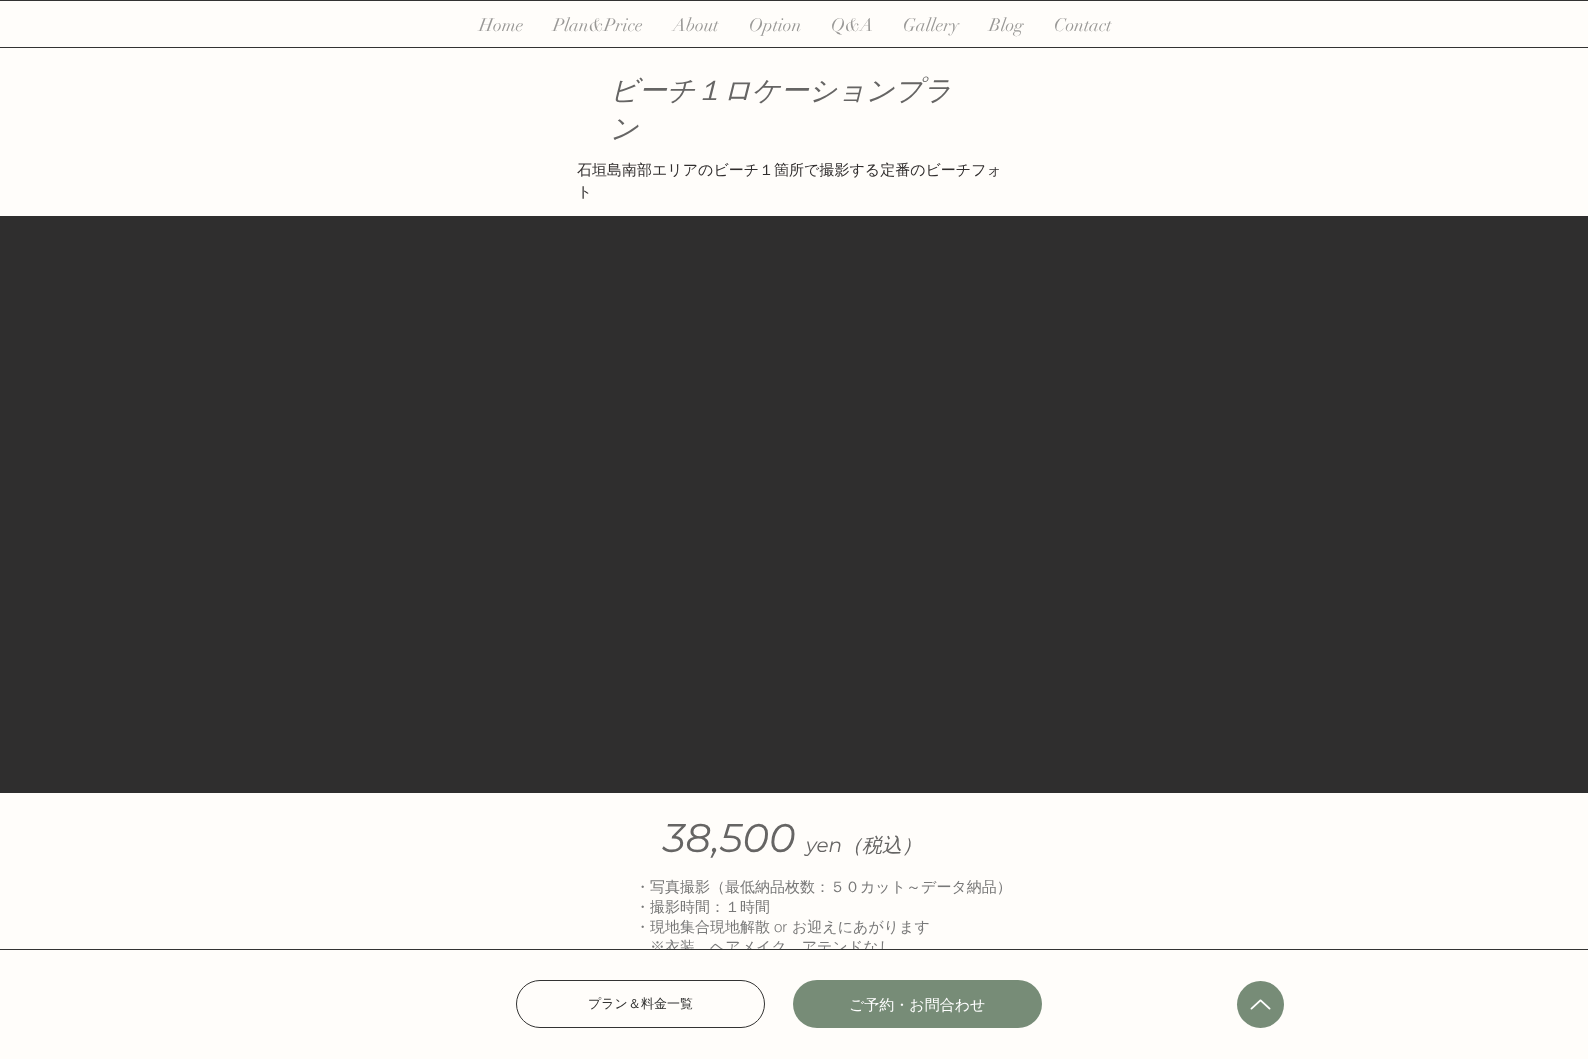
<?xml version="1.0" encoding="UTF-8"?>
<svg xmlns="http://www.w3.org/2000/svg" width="1588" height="1059">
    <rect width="100%" height="100%" fill="#FFFDFA"/>
    <rect x="0" y="0" width="1588" height="1" fill="#333332"/>
    <rect x="0" y="47" width="1588" height="1" fill="#333332"/>
    <text x="479" y="31" font-family="didot" font-size="18" fill="#999896">Home</text>
    <text x="553" y="31" font-family="didot" font-size="18" fill="#999896">Plan&amp;Price</text>
    <text x="673" y="31" font-family="didot" font-size="18" fill="#999896">About</text>
    <text x="749" y="31" font-family="didot" font-size="18" fill="#999896">Option</text>
    <text x="831" y="31" font-family="didot" font-size="18" fill="#999896">Q&amp;A</text>
    <text x="903" y="31" font-family="didot" font-size="18" fill="#999896">Gallery</text>
    <text x="989" y="31" font-family="didot" font-size="18" fill="#999896">Blog</text>
    <text x="1054" y="31" font-family="didot" font-size="18" fill="#999896">Contact</text>
    <text font-family="WenQuanYi Zen Hei" font-size="28" font-weight="500" font-style="italic" fill="#666564">
        <tspan x="610" y="100">ビーチ１ロケーションプラ</tspan>
        <tspan x="610" y="138">ン</tspan>
    </text>
    <text font-family="WenQuanYi Zen Hei" font-size="15" font-weight="500" fill="#302D2D">
        <tspan x="577" y="175">石垣島南部エリアのビーチ１箇所で撮影する定番のビーチフォ</tspan>
        <tspan x="577" y="197">ト</tspan>
    </text>
    <rect x="0" y="216" width="1588" height="577" fill="#2F2E2E"/>
    <text x="663" y="852" font-family="Montserrat" font-size="40" font-style="italic" fill="#666564">38,500</text>
    <text x="806" y="852" font-family="Montserrat" font-size="20" font-style="italic" fill="#666564">yen</text>
    <text x="842" y="852" font-family="WenQuanYi Zen Hei" font-size="20" font-weight="500" font-style="italic" fill="#666564">（税込）</text>
    <text font-family="WenQuanYi Zen Hei" font-size="15" font-weight="500" fill="#787878">
        <tspan x="635" y="892">・写真撮影（最低納品枚数：５０カット～データ納品）</tspan>
        <tspan x="635" y="912">・撮影時間：１時間</tspan>
        <tspan x="635" y="932">・現地集合現地解散</tspan>
    </text>
    <text x="774" y="932" font-family="helvetica" font-size="15" font-weight="300" fill="#787878">or</text>
    <text x="792" y="932" font-family="WenQuanYi Zen Hei" font-size="15" font-weight="500" fill="#787878">お迎えにあがります</text>
    <text x="650" y="952" font-family="WenQuanYi Zen Hei" font-size="15" font-weight="500" fill="#787878">※衣装、ヘアメイク、アテンドなし</text>
    <rect x="652" y="950" width="240" height="5" fill="#FFFDFA"/>
    <rect x="0" y="949" width="1588" height="1" fill="#333332"/>
    <rect x="516.5" y="980.5" width="248" height="47" rx="23.5" fill="none" stroke="#333332"/>
    <text x="588" y="1008" font-family="WenQuanYi Zen Hei" font-size="13" font-weight="500" fill="#333332">プラン＆料金一覧</text>
    <rect x="793" y="980" width="249" height="48" rx="24" fill="#778C77"/>
    <text x="849" y="1010" font-family="WenQuanYi Zen Hei" font-size="15" font-weight="500" fill="#FFFFFF">ご予約・お問合わせ</text>
    <circle cx="1260.5" cy="1004.5" r="23.5" fill="#778C77"/>
    <image x="1250" y="999" width="21" height="11" href="img_01.png"/>
</svg>
